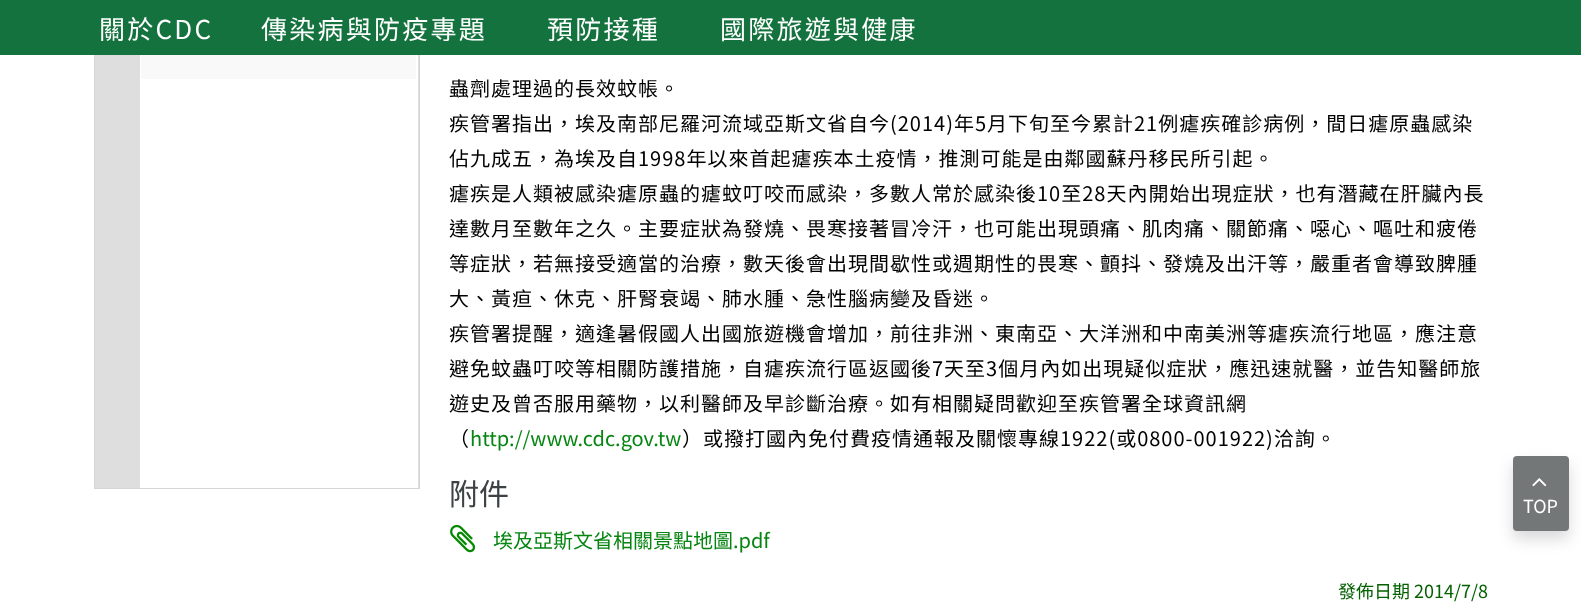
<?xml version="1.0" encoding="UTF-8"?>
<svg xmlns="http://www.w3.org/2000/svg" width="1581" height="603">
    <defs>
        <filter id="blur1" x="-50%" y="-200%" width="200%" height="500%"><feGaussianBlur stdDeviation="7.5"/></filter>
    </defs>
    <rect width="100%" height="100%" fill="#FFFFFF"/>
    <path d="M 420 -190 V 489 L 419 488 V -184 Z" fill="#D7D6D5"/>
    <rect x="94" y="488" width="326" height="1" fill="#D7D6D5"/>
    <path d="M 94 489 V -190 L 95 -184 V 488 Z" fill="#D7D6D5"/>
    <rect x="0" y="0" width="1581" height="55" fill="#14723E"/>
    <text x="99" y="39" font-family="Noto Sans TC" font-size="26" letter-spacing="2.25" fill="#FFFFFF">關於CDC</text>
    <text x="261" y="39" font-family="Noto Sans TC" font-size="26" letter-spacing="2.25" fill="#FFFFFF">傳染病與防疫專題</text>
    <text x="547" y="39" font-family="Noto Sans TC" font-size="26" letter-spacing="2.25" fill="#FFFFFF">預防接種</text>
    <text x="720" y="39" font-family="Noto Sans TC" font-size="26" letter-spacing="2.25" fill="#FFFFFF">國際旅遊與健康</text>
    <rect x="95" y="55" width="324" height="433" fill="#DEDEDE"/>
    <rect x="140" y="55" width="278" height="433" fill="#FFFFFF"/>
    <rect x="141" y="55" width="275" height="24" fill="#F9F9F9"/>
    <text font-family="Noto Sans TC" font-size="20" letter-spacing="1" fill="#000000">
        <tspan x="449" y="96">蟲劑處理過的長效蚊帳。</tspan>
        <tspan x="449" y="131">疾管署指出，埃及南部尼羅河流域亞斯文省自今(2014)年5月下旬至今累計21例瘧疾確診病例，間日瘧原蟲感染</tspan>
        <tspan x="449" y="166">佔九成五，為埃及自1998年以來首起瘧疾本土疫情，推測可能是由鄰國蘇丹移民所引起。</tspan>
        <tspan x="449" y="201">瘧疾是人類被感染瘧原蟲的瘧蚊叮咬而感染，多數人常於感染後10至28天內開始出現症狀，也有潛藏在肝臟內長</tspan>
        <tspan x="449" y="236">達數月至數年之久。主要症狀為發燒、畏寒接著冒冷汗，也可能出現頭痛、肌肉痛、關節痛、噁心、嘔吐和疲倦</tspan>
        <tspan x="449" y="271">等症狀，若無接受適當的治療，數天後會出現間歇性或週期性的畏寒、顫抖、發燒及出汗等，嚴重者會導致脾腫</tspan>
        <tspan x="449" y="306">大、黃疸、休克、肝腎衰竭、肺水腫、急性腦病變及昏迷。</tspan>
        <tspan x="449" y="341">疾管署提醒，適逢暑假國人出國旅遊機會增加，前往非洲、東南亞、大洋洲和中南美洲等瘧疾流行地區，應注意</tspan>
        <tspan x="449" y="376">避免蚊蟲叮咬等相關防護措施，自瘧疾流行區返國後7天至3個月內如出現疑似症狀，應迅速就醫，並告知醫師旅</tspan>
        <tspan x="449" y="411">遊史及曾否服用藥物，以利醫師及早診斷治療。如有相關疑問歡迎至疾管署全球資訊網</tspan>
        <tspan x="449" y="446">（</tspan>
    </text>
    <text x="470" y="446" font-family="Noto Sans TC" font-size="20" fill="#068511">http://www.cdc.gov.tw</text>
    <text x="682" y="446" font-family="Noto Sans TC" font-size="20" letter-spacing="1" fill="#000000">）或撥打國內免付費疫情通報及關懷專線1922(或0800-001922)洽詢。</text>
    <text x="449" y="505" font-family="Noto Sans TC" font-size="30" fill="#3D4245">附件</text>
    <image x="450" y="524" width="26" height="29" href="img_01.png"/>
    <text x="493" y="548" font-family="Noto Sans TC" font-size="20" fill="#068511">埃及亞斯文省相關景點地圖.pdf</text>
    <text x="1338" y="598" font-family="Noto Sans TC" font-size="18" fill="#036100">發佈日期 2014/7/8</text>
    <rect x="1513" y="464" width="56" height="75" rx="4" fill="#000000" fill-opacity="0.15" filter="url(#blur1)"/>
    <rect x="1513" y="456" width="56" height="75" rx="4" fill="#747778"/>
    <image x="1532" y="478" width="15" height="9" href="img_02.png"/>
    <text x="1523" y="513" font-family="Noto Sans TC" font-size="18" fill="#FFFFFF">TOP</text>
</svg>
